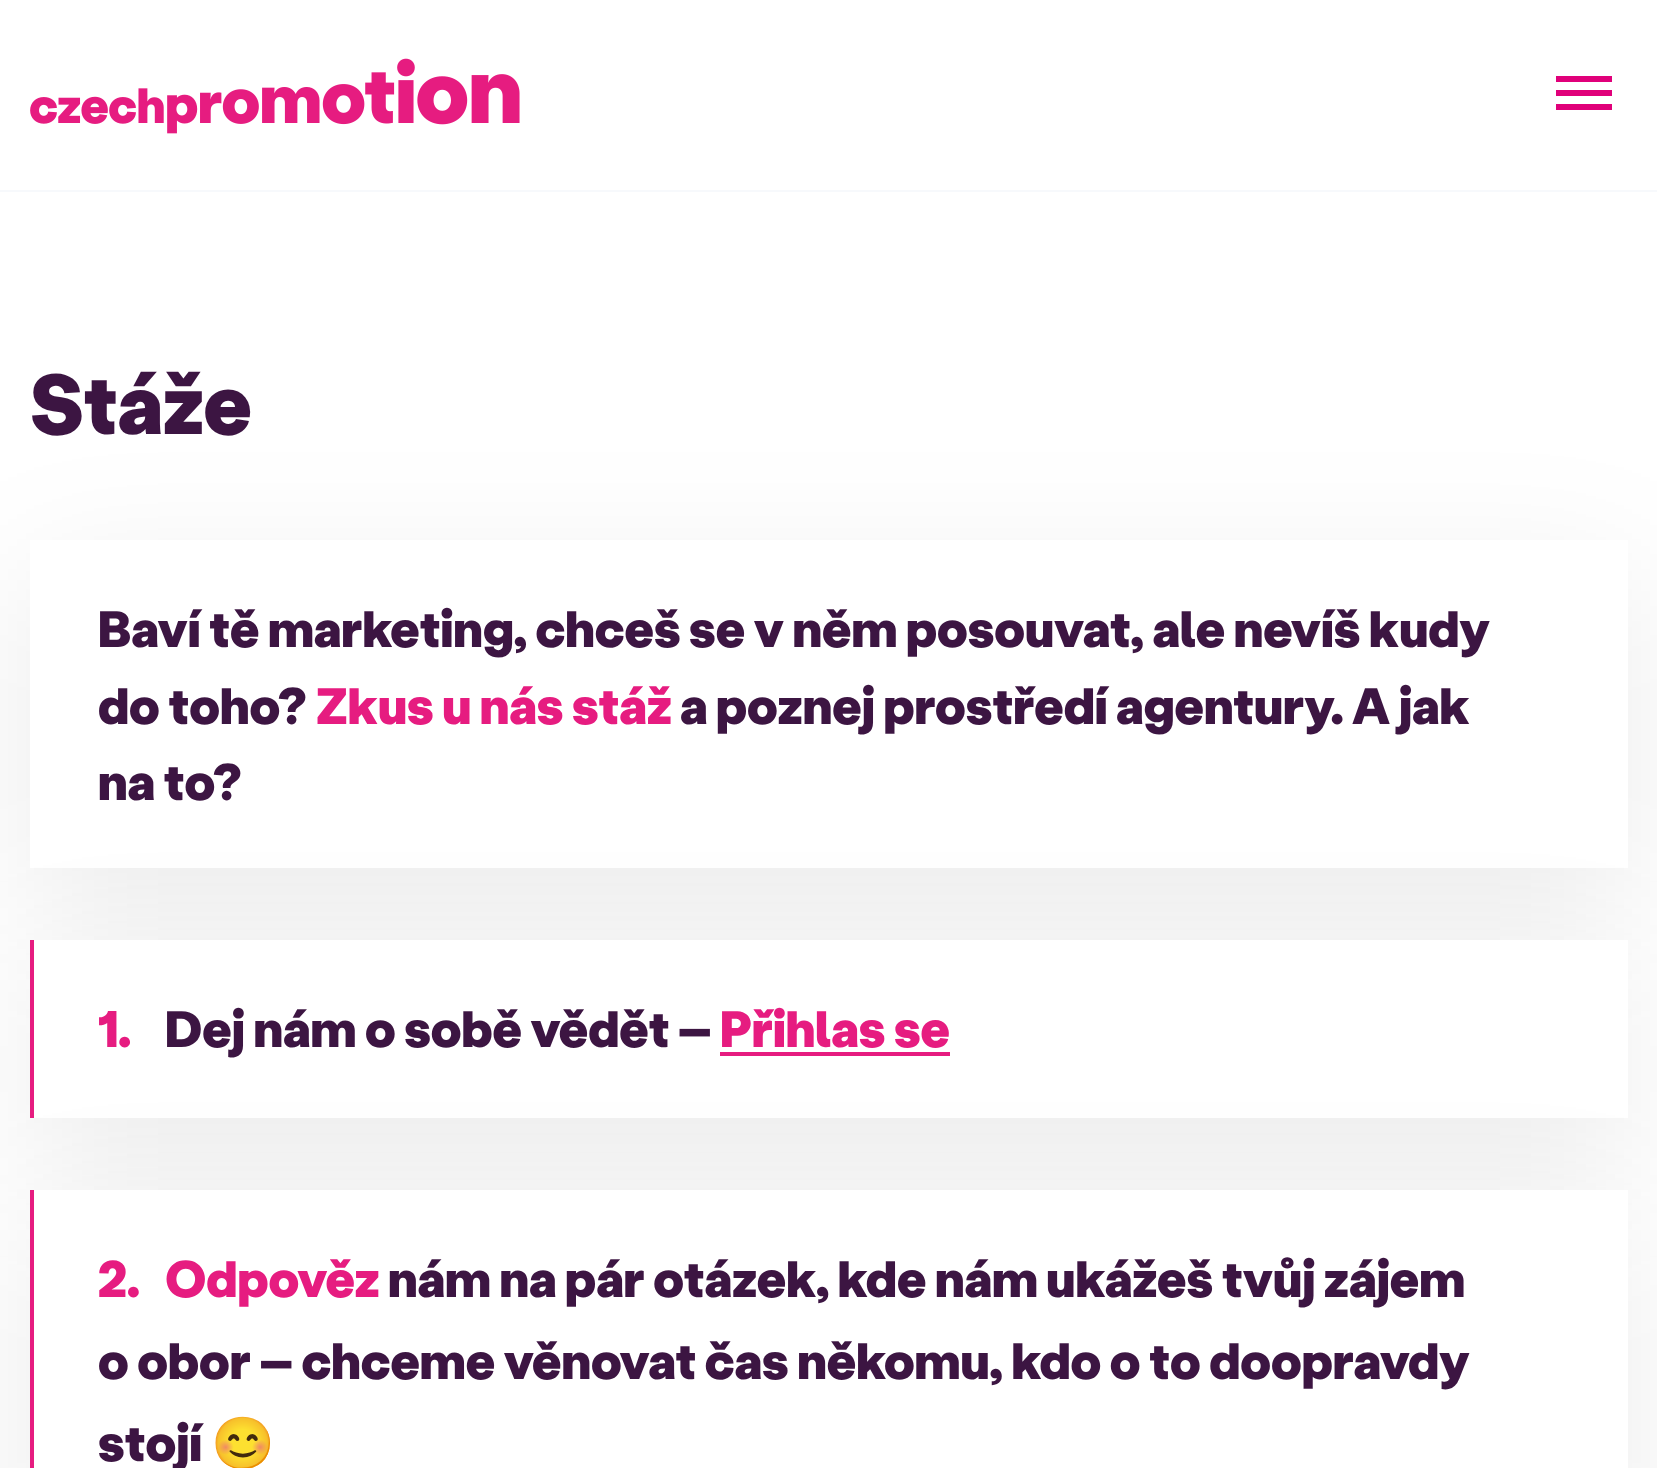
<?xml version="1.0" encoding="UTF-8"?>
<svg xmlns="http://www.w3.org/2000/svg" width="1657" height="1468">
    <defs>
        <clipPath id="clip1"><path d="M 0 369 H 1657 V 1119 H 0 Z M 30 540 H 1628 V 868 H 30 Z" clip-rule="evenodd"/></clipPath>
        <filter id="blur1" x="-50%" y="-200%" width="200%" height="500%"><feGaussianBlur stdDeviation="70"/></filter>
    </defs>
    <rect width="100%" height="100%" fill="#FFFFFF"/>
    <rect x="0" y="190" width="1657" height="2" fill="#F7F9FC"/>
    <image x="30" y="58" width="490" height="76" href="img_01.png"/>
    <rect x="1556" y="76" width="56" height="6" fill="#E0007A"/>
    <rect x="1556" y="90" width="56" height="6" fill="#E0007A"/>
    <rect x="1556" y="104" width="56" height="6" fill="#E0007A"/>
    <text x="30" y="434" font-family="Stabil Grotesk" font-size="84" font-weight="900" fill="#3C1542">Stáže</text>
    <g clip-path="url(#clip1)">
        <rect x="30" y="580" width="1598" height="328" fill="#000000" fill-opacity="0.08" filter="url(#blur1)"/>
    </g>
    <text font-family="Stabil Grotesk" font-size="51.2" font-weight="900" fill="#3C1542">
        <tspan x="98" y="647">Baví tě marketing, chceš se v něm posouvat, ale nevíš kudy</tspan>
        <tspan x="98" y="724">do toho?</tspan>
    </text>
    <text x="316" y="724" font-family="Stabil Grotesk" font-size="51.2" font-weight="900" fill="#E61C80">Zkus u nás stáž</text>
    <text x="680" y="724" font-family="Stabil Grotesk" font-size="51.2" font-weight="900" fill="#3C1542">a poznej prostředí agentury. A jak</text>
    <text x="98" y="800" font-family="Stabil Grotesk" font-size="51.2" font-weight="900" fill="#3C1542">na to?</text>
    <rect x="30" y="980" width="1598" height="178" fill="#000000" fill-opacity="0.08" filter="url(#blur1)"/>
    <rect x="34" y="940" width="1594" height="178" fill="#FFFFFF"/>
    <rect x="30" y="940" width="4" height="178" fill="#E61C80"/>
    <text x="98" y="1047" font-family="Stabil Grotesk" font-size="51.2" font-weight="900" fill="#E61C80">1.</text>
    <text x="165" y="1047" font-family="Stabil Grotesk" font-size="51.2" font-weight="900" fill="#3C1542">Dej nám o sobě vědět –</text>
    <text x="720" y="1047" font-family="Stabil Grotesk" font-size="51.2" font-weight="900" fill="#E61C80">Přihlas se</text>
    <rect x="720" y="1052" width="230" height="4" fill="#E61C80"/>
    <rect x="30" y="1230" width="1598" height="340" fill="#000000" fill-opacity="0.08" filter="url(#blur1)"/>
    <rect x="34" y="1190" width="1594" height="278" fill="#FFFFFF"/>
    <rect x="30" y="1190" width="4" height="278" fill="#E61C80"/>
    <text x="98" y="1297" font-family="Stabil Grotesk" font-size="51.2" font-weight="900" fill="#E61C80">2.</text>
    <text x="165" y="1297" font-family="Stabil Grotesk" font-size="51.2" font-weight="900" fill="#E61C80">Odpověz</text>
    <text x="388" y="1297" font-family="Stabil Grotesk" font-size="51.2" font-weight="900" fill="#3C1542">nám na pár otázek, kde nám ukážeš tvůj zájem</text>
    <text font-family="Stabil Grotesk" font-size="51.2" font-weight="900" fill="#3C1542">
        <tspan x="98" y="1379">o obor – chceme věnovat čas někomu, kdo o to doopravdy</tspan>
        <tspan x="98" y="1461">stojí</tspan>
    </text>
    <text x="211" y="1461" font-family="Noto Color Emoji" font-size="51.2" font-weight="700" fill="#3C1542">😊</text>
</svg>
